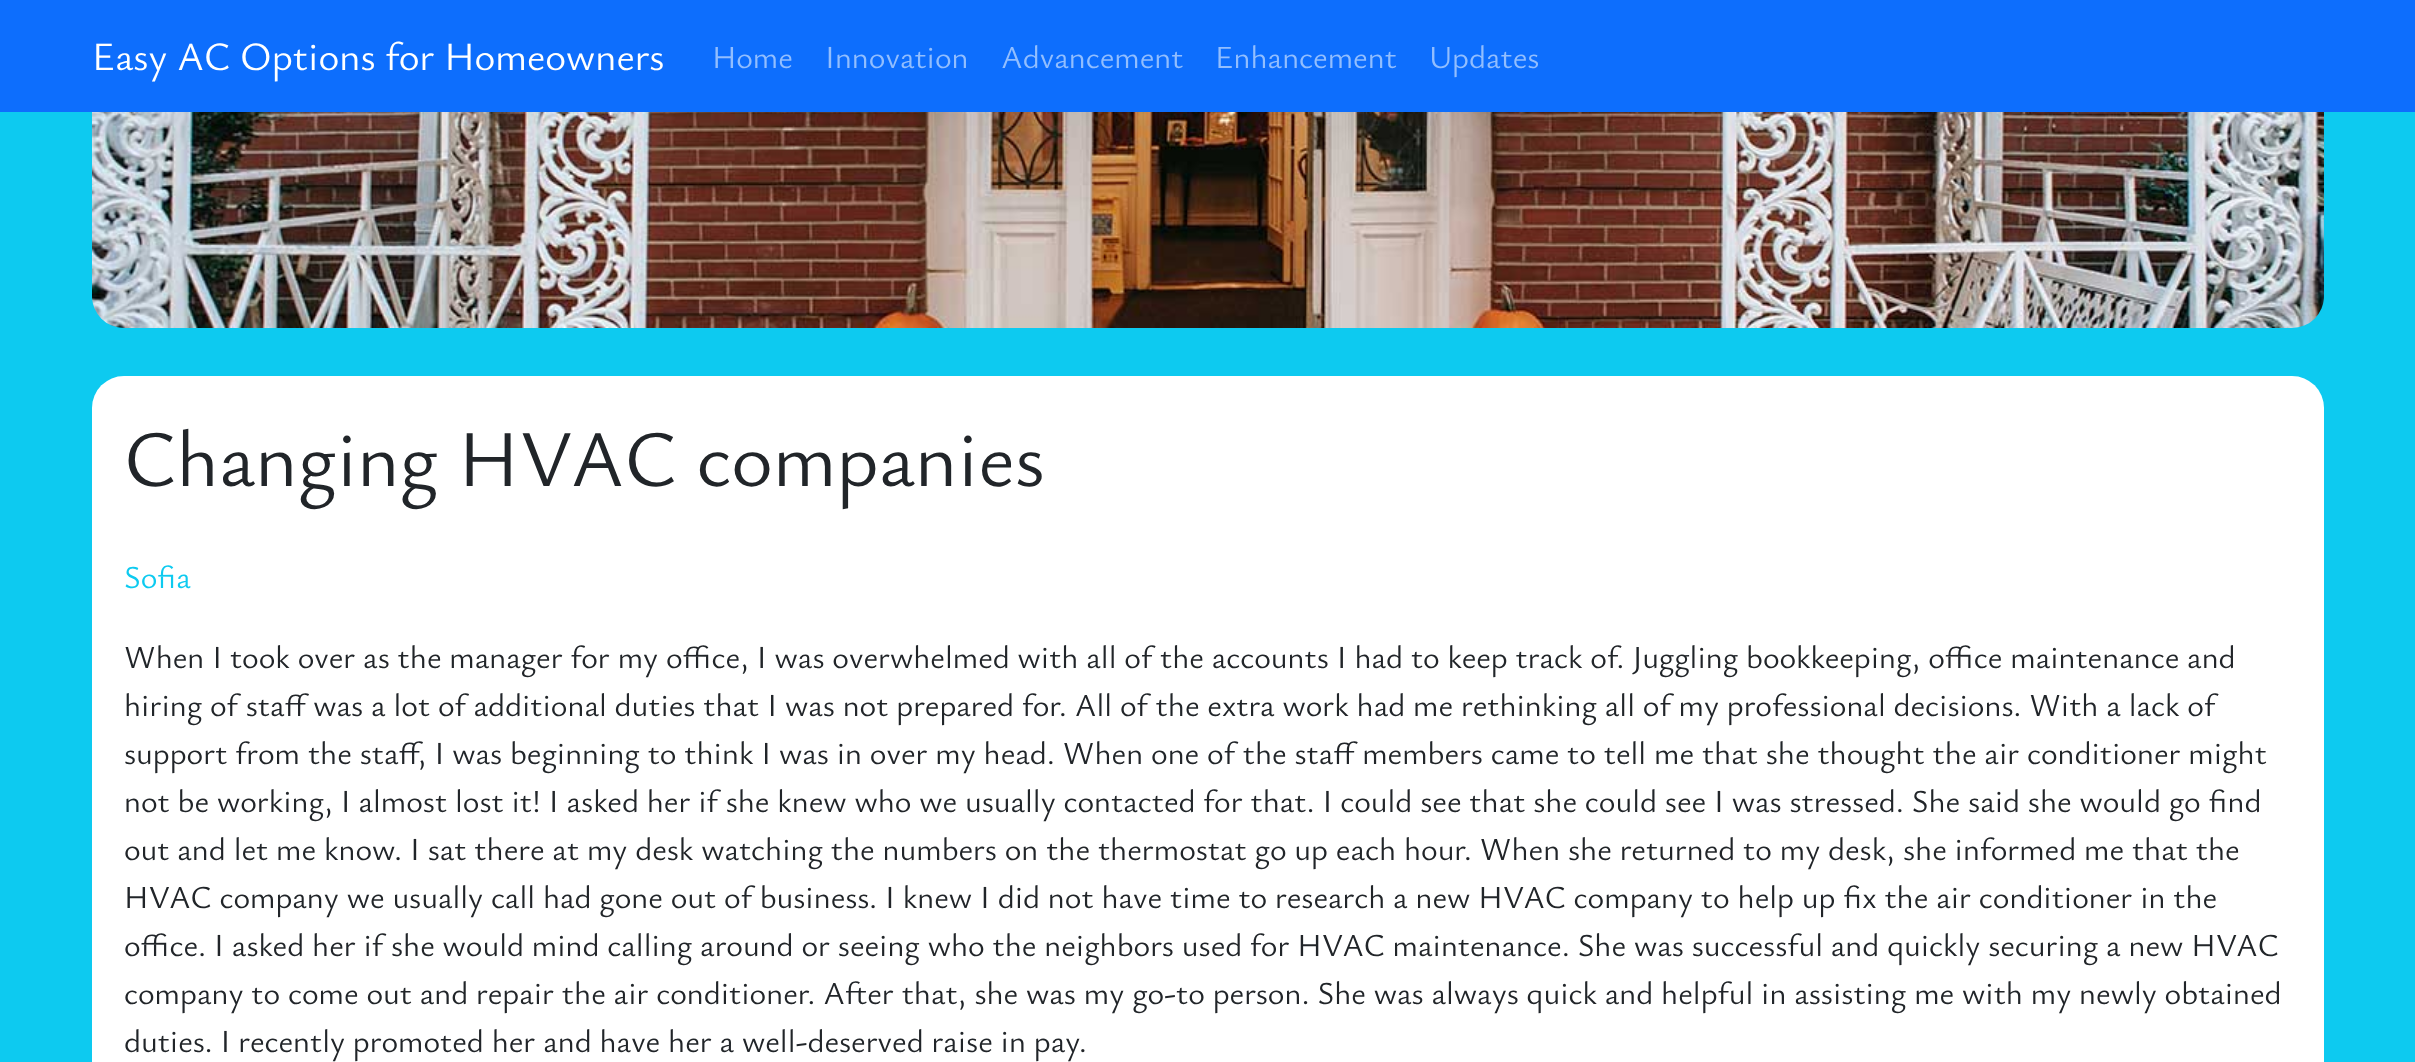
<?xml version="1.0" encoding="UTF-8"?>
<svg xmlns="http://www.w3.org/2000/svg" width="2415" height="1062">
    <rect width="100%" height="100%" fill="#0DCAF0"/>
    <rect x="0" y="0" width="2415" height="112" fill="#0D6EFD"/>
    <text x="92" y="70" font-family="Ysabeau" font-size="40" fill="#FFFFFF">Easy AC Options for Homeowners</text>
    <text x="712" y="68" font-family="Ysabeau" font-size="32" fill="#92BEFE">Home</text>
    <text x="825" y="68" font-family="Ysabeau" font-size="32" fill="#92BEFE">Innovation</text>
    <text x="1001" y="68" font-family="Ysabeau" font-size="32" fill="#92BEFE">Advancement</text>
    <text x="1215" y="68" font-family="Ysabeau" font-size="32" fill="#92BEFE">Enhancement</text>
    <text x="1429" y="68" font-family="Ysabeau" font-size="32" fill="#92BEFE">Updates</text>
    <image x="92" y="112" width="2232" height="216" href="img_01.png"/>
    <rect x="92" y="376" width="2232" height="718" rx="32" fill="#FFFFFF"/>
    <text x="124" y="486" font-family="Ysabeau" font-size="80" fill="#212529">Changing HVAC companies</text>
    <text x="124" y="588" font-family="Ysabeau" font-size="32" fill="#0DCAF0">Sofia</text>
    <text font-family="Ysabeau" font-size="32" fill="#212529">
        <tspan x="124" y="668">When I took over as the manager for my office, I was overwhelmed with all of the accounts I had to keep track of. Juggling bookkeeping, office maintenance and</tspan>
        <tspan x="124" y="716">hiring of staff was a lot of additional duties that I was not prepared for. All of the extra work had me rethinking all of my professional decisions. With a lack of</tspan>
        <tspan x="124" y="764">support from the staff, I was beginning to think I was in over my head. When one of the staff members came to tell me that she thought the air conditioner might</tspan>
        <tspan x="124" y="812">not be working, I almost lost it! I asked her if she knew who we usually contacted for that. I could see that she could see I was stressed. She said she would go find</tspan>
        <tspan x="124" y="860">out and let me know. I sat there at my desk watching the numbers on the thermostat go up each hour. When she returned to my desk, she informed me that the</tspan>
        <tspan x="124" y="908">HVAC company we usually call had gone out of business. I knew I did not have time to research a new HVAC company to help up fix the air conditioner in the</tspan>
        <tspan x="124" y="956">office. I asked her if she would mind calling around or seeing who the neighbors used for HVAC maintenance. She was successful and quickly securing a new HVAC</tspan>
        <tspan x="124" y="1004">company to come out and repair the air conditioner. After that, she was my go-to person. She was always quick and helpful in assisting me with my newly obtained</tspan>
        <tspan x="124" y="1052">duties. I recently promoted her and have her a well-deserved raise in pay.</tspan>
    </text>
</svg>
